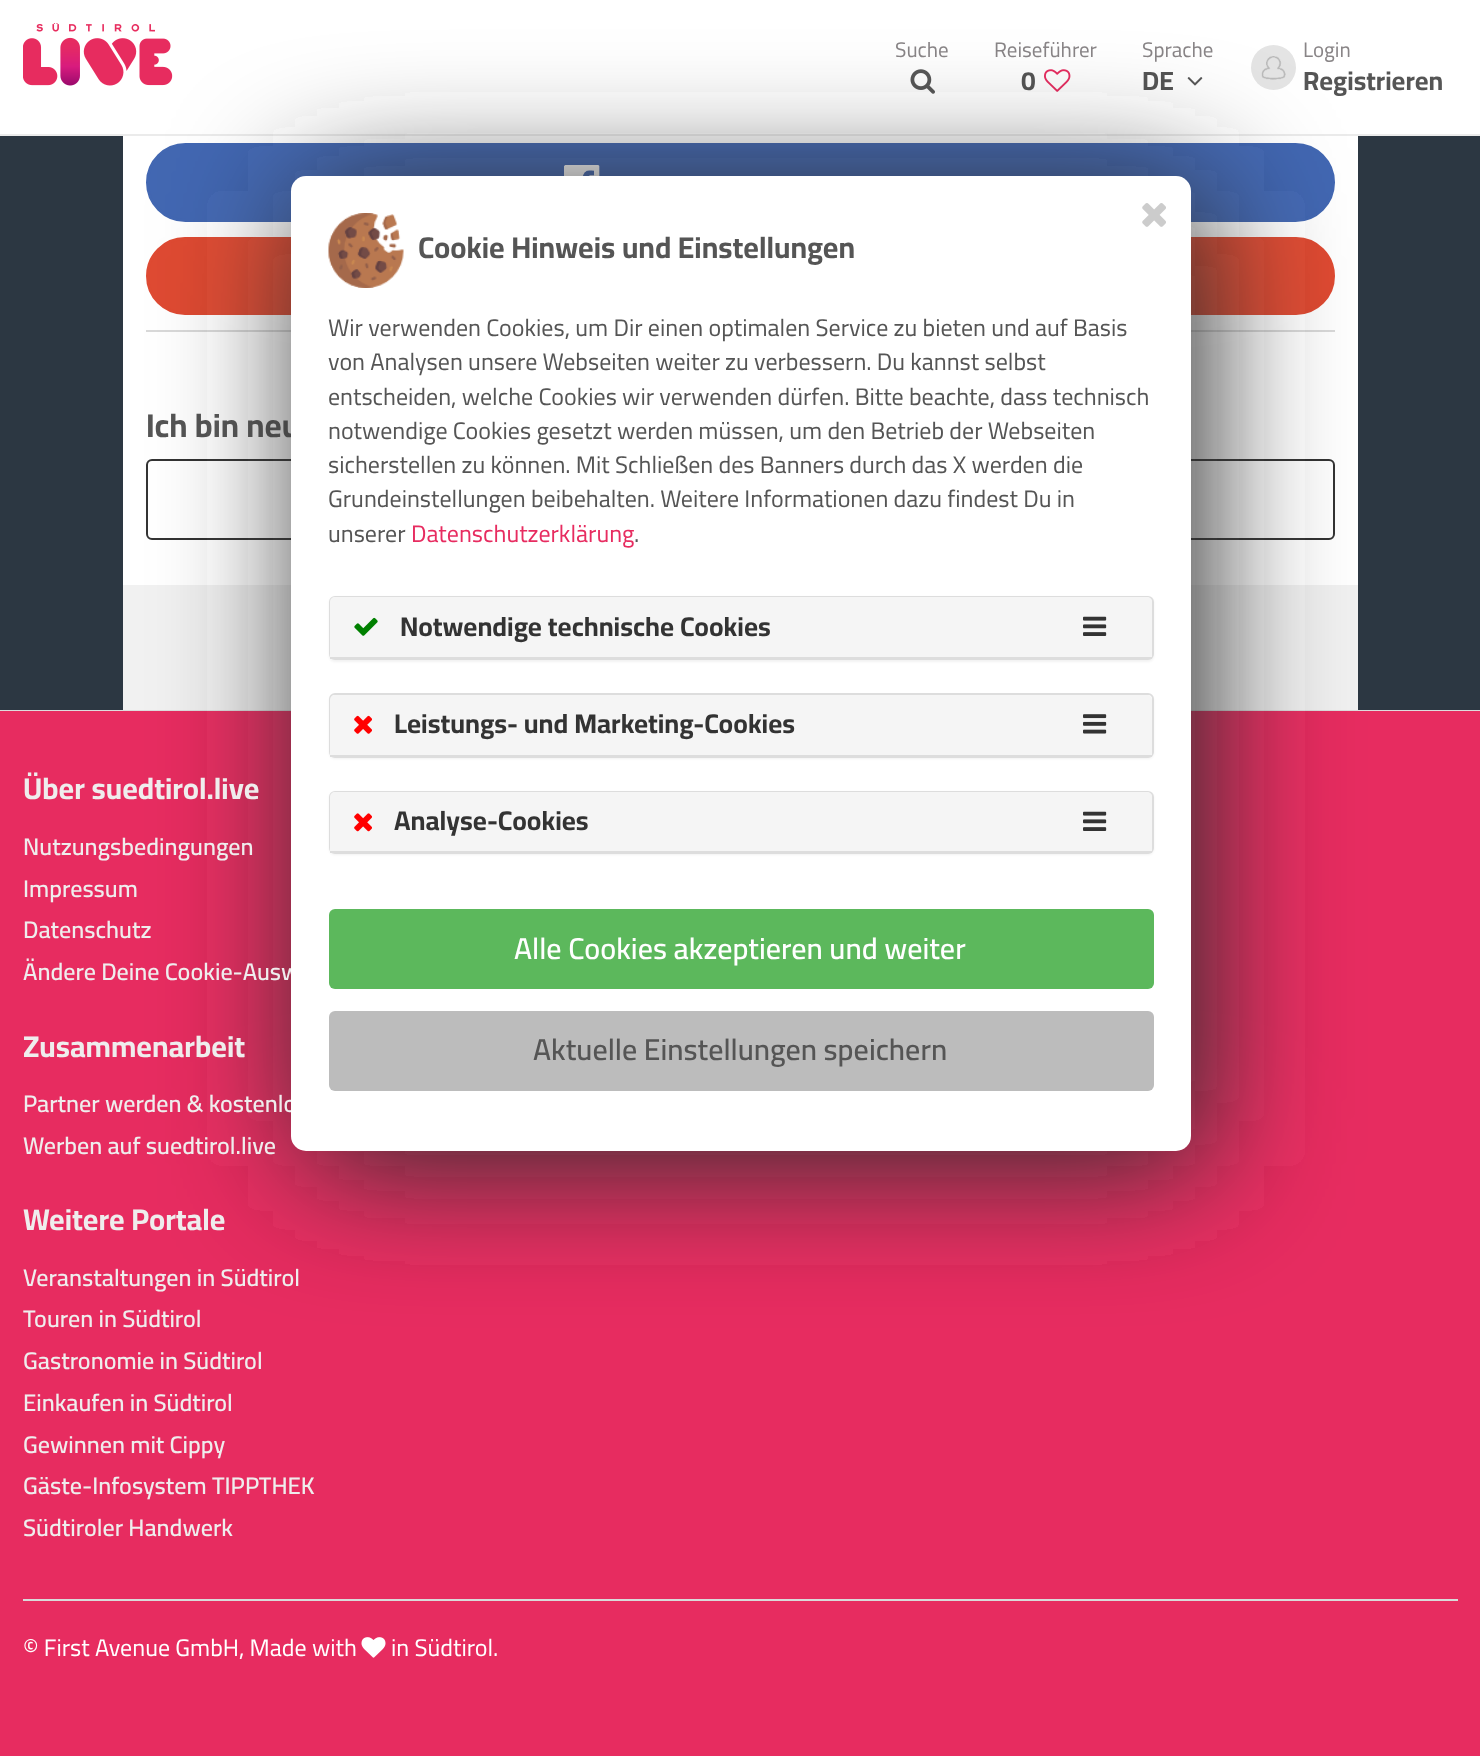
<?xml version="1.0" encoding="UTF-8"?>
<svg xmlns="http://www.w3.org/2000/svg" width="1480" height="1756">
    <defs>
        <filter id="blur1" x="-50%" y="-200%" width="200%" height="500%"><feGaussianBlur stdDeviation="67.5"/></filter>
        <filter id="blur2" x="-50%" y="-200%" width="200%" height="500%"><feGaussianBlur stdDeviation="1"/></filter>
    </defs>
    <rect width="100%" height="100%" fill="#2C3742"/>
    <rect x="0" y="0" width="1480" height="134" fill="#FFFFFF"/>
    <rect x="0" y="134" width="1480" height="2" fill="#EBEBEB"/>
    <image x="23" y="23" width="150" height="63" href="img_01.png"/>
    <text x="895" y="57" font-family="Cairo" font-size="21" fill="#898587">Suche</text>
    <image x="910" y="69" width="25" height="25" href="img_02.png"/>
    <text x="994" y="57" font-family="Cairo" font-size="21" fill="#898587">Reiseführer</text>
    <text x="1021" y="90" font-family="Cairo" font-size="26.5" font-weight="700" fill="#555555">0</text>
    <image x="1044" y="69" width="27" height="23" href="img_03.png"/>
    <text x="1142" y="57" font-family="Cairo" font-size="21" fill="#898587">Sprache</text>
    <text x="1142" y="90" font-family="Cairo" font-size="26.5" font-weight="700" fill="#555555">DE</text>
    <image x="1187" y="77" width="16" height="9" href="img_04.png"/>
    <image x="1251" y="45" width="45" height="45" href="img_05.png"/>
    <text x="1303" y="57" font-family="Cairo" font-size="21" fill="#898587">Login</text>
    <text x="1303" y="90" font-family="Cairo" font-size="26.5" font-weight="700" fill="#555555">Registrieren</text>
    <rect x="0" y="710" width="1480" height="1" fill="#DDDDDD"/>
    <rect x="123" y="136" width="1235" height="449" fill="#FFFFFF"/>
    <rect x="147.5" y="144.5" width="1186" height="76" rx="38" fill="#4267B2" stroke="#4267B2" stroke-width="3"/>
    <image x="564" y="165" width="36" height="11" href="img_06.png"/>
    <rect x="147.5" y="238.5" width="1186" height="75" rx="37.5" fill="#DF4A32" stroke="#DF4A32" stroke-width="3"/>
    <rect x="146" y="330" width="1189" height="2" fill="#D9D9D9"/>
    <text x="146" y="437" font-family="Cairo" font-size="33" font-weight="700" fill="#555555">Ich bin neu</text>
    <rect x="147" y="460" width="1187" height="79" rx="5" fill="none" stroke="#333333" stroke-width="2"/>
    <rect x="123" y="585" width="1235" height="125" fill="#F1F1F1"/>
    <rect x="0" y="711" width="1480" height="1045" fill="#E72C60"/>
    <rect x="306" y="191" width="900" height="975" rx="15" fill="#333333" filter="url(#blur1)"/>
    <text x="23" y="980" font-family="Cairo" font-size="24" font-weight="600" fill="#EFEDED">Ändere Deine Cookie-Ausw</text>
    <text x="23" y="1112" font-family="Cairo" font-size="24" font-weight="600" fill="#EFEDED">Partner werden &amp; kostenlo</text>
    <rect x="291" y="176" width="900" height="975" rx="15" fill="#FFFFFF"/>
    <image x="1142" y="203" width="24" height="24" href="img_07.png"/>
    <image x="328" y="213" width="76" height="75" href="img_08.png"/>
    <text x="418" y="258" font-family="Cairo" font-size="30" font-weight="700" fill="#555555">Cookie Hinweis und Einstellungen</text>
    <text font-family="Cairo" font-size="24" fill="#555555">
        <tspan x="328" y="336">Wir verwenden Cookies, um Dir einen optimalen Service zu bieten und auf Basis</tspan>
        <tspan x="328" y="370">von Analysen unsere Webseiten weiter zu verbessern. Du kannst selbst</tspan>
        <tspan x="328" y="405">entscheiden, welche Cookies wir verwenden dürfen. Bitte beachte, dass technisch</tspan>
        <tspan x="328" y="439">notwendige Cookies gesetzt werden müssen, um den Betrieb der Webseiten</tspan>
        <tspan x="328" y="473">sicherstellen zu können. Mit Schließen des Banners durch das X werden die</tspan>
        <tspan x="328" y="507">Grundeinstellungen beibehalten. Weitere Informationen dazu findest Du in</tspan>
        <tspan x="328" y="542">unserer</tspan>
    </text>
    <text x="411" y="542" font-family="Cairo" font-size="24" fill="#E72C60">Datenschutzerklärung</text>
    <text x="634" y="542" font-family="Cairo" font-size="24" fill="#555555">.</text>
    <rect x="329" y="597" width="825" height="65" rx="6" fill="#000000" fill-opacity="0.05" filter="url(#blur2)"/>
    <rect x="330" y="597" width="823" height="62" rx="5" fill="none" stroke="#DDDDDD" stroke-width="2"/>
    <path d="M 335 597 H 1147 C 1150 597 1152 599 1152 602 V 659 H 330 V 602 C 330 599 332 597 335 597 Z" fill="#F5F5F5"/>
    <rect x="330" y="657" width="822" height="2" fill="#DDDDDD"/>
    <image x="354" y="617" width="24" height="19" href="img_09.png"/>
    <text x="400" y="636" font-family="Cairo" font-size="27" font-weight="700" fill="#333333">Notwendige technische Cookies</text>
    <image x="1083" y="616" width="24" height="20" href="img_10.png"/>
    <rect x="329" y="695" width="825" height="64" rx="6" fill="#000000" fill-opacity="0.05" filter="url(#blur2)"/>
    <rect x="330" y="694" width="823" height="63" rx="5" fill="#FFFFFF" stroke="#DDDDDD" stroke-width="2"/>
    <path d="M 335 695 H 1147 C 1150 695 1152 697 1152 700 V 756 H 330 V 700 C 330 697 332 695 335 695 Z" fill="#F5F5F5"/>
    <rect x="330" y="755" width="822" height="2" fill="#DDDDDD"/>
    <image x="354" y="715" width="18" height="19" href="img_11.png"/>
    <text x="394" y="733" font-family="Cairo" font-size="27" font-weight="700" fill="#333333">Leistungs- und Marketing-Cookies</text>
    <image x="1083" y="714" width="24" height="20" href="img_12.png"/>
    <rect x="329" y="792" width="825" height="63" rx="6" fill="#000000" fill-opacity="0.05" filter="url(#blur2)"/>
    <rect x="330" y="792" width="823" height="61" rx="5" fill="none" stroke="#DDDDDD" stroke-width="2"/>
    <path d="M 335 792 H 1147 C 1150 792 1152 794 1152 797 V 852 H 330 V 797 C 330 794 332 792 335 792 Z" fill="#F5F5F5"/>
    <rect x="330" y="851" width="822" height="2" fill="#DDDDDD"/>
    <image x="354" y="813" width="18" height="19" href="img_13.png"/>
    <text x="394" y="830" font-family="Cairo" font-size="27" font-weight="700" fill="#333333">Analyse-Cookies</text>
    <image x="1083" y="811" width="24" height="20" href="img_10.png"/>
    <rect x="329" y="909" width="825" height="80" rx="6" fill="#5CB85C"/>
    <text x="514" y="959" font-family="Cairo" font-size="30" font-weight="600" fill="#FFFFFF">Alle Cookies akzeptieren und weiter</text>
    <rect x="329" y="1011" width="825" height="80" rx="6" fill="#BCBCBC"/>
    <text x="533" y="1060" font-family="Cairo" font-size="30" font-weight="600" fill="#555555">Aktuelle Einstellungen speichern</text>
    <text x="23" y="799" font-family="Cairo" font-size="30" font-weight="700" fill="#EFEDED">Über suedtirol.live</text>
    <text font-family="Cairo" font-size="24" font-weight="600" fill="#EFEDED">
        <tspan x="23" y="855">Nutzungsbedingungen</tspan>
        <tspan x="23" y="897">Impressum</tspan>
        <tspan x="23" y="938">Datenschutz</tspan>
    </text>
    <text x="23" y="1057" font-family="Cairo" font-size="30" font-weight="700" fill="#EFEDED">Zusammenarbeit</text>
    <text x="23" y="1154" font-family="Cairo" font-size="24" font-weight="600" fill="#EFEDED">Werben auf suedtirol.live</text>
    <text x="23" y="1230" font-family="Cairo" font-size="30" font-weight="700" fill="#EFEDED">Weitere Portale</text>
    <text font-family="Cairo" font-size="24" font-weight="600" fill="#EFEDED">
        <tspan x="23" y="1286">Veranstaltungen in Südtirol</tspan>
        <tspan x="23" y="1327">Touren in Südtirol</tspan>
        <tspan x="23" y="1369">Gastronomie in Südtirol</tspan>
        <tspan x="23" y="1411">Einkaufen in Südtirol</tspan>
        <tspan x="23" y="1453">Gewinnen mit Cippy</tspan>
        <tspan x="23" y="1494">Gäste-Infosystem TIPPTHEK</tspan>
        <tspan x="23" y="1536">Südtiroler Handwerk</tspan>
    </text>
    <rect x="23" y="1599" width="1435" height="2" fill="#D9D9D9"/>
    <text x="23" y="1656" font-family="Cairo" font-size="24" fill="#FFFFFF">© First Avenue GmbH, Made with</text>
    <image x="361" y="1637" width="25" height="21" href="img_14.png"/>
    <text x="391" y="1656" font-family="Cairo" font-size="24" fill="#FFFFFF">in Südtirol.</text>
</svg>
